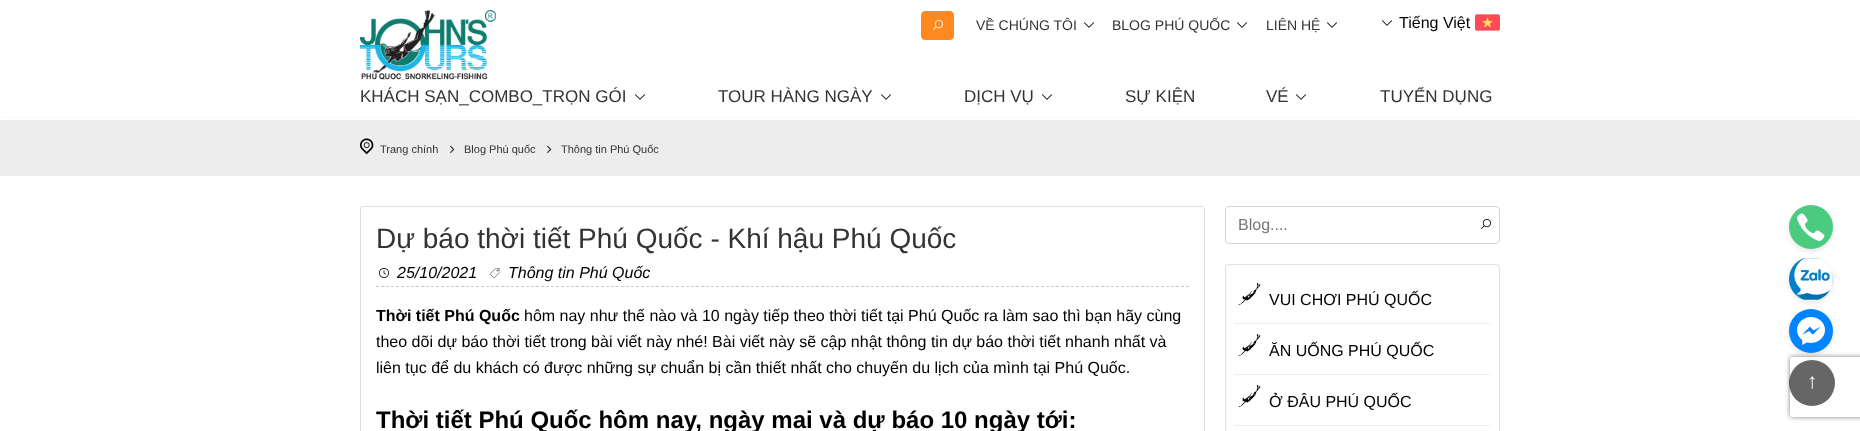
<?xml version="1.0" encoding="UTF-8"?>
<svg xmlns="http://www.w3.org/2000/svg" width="1860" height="431">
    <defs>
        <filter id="blur1" x="-50%" y="-200%" width="200%" height="500%"><feGaussianBlur stdDeviation="2.5"/></filter>
        <linearGradient id="g1" gradientUnits="userSpaceOnUse" x1="930" y1="110" x2="930" y2="121"><stop offset="0.1" stop-color="#FFFFFF"/><stop offset="0.5" stop-color="#FFFFFF"/><stop offset="0.7" stop-color="#FFFFFF" stop-opacity="0.4"/><stop offset="1" stop-color="#FFFFFF" stop-opacity="0"/></linearGradient>
        <clipPath id="clip1"><path d="M 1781 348 H 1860 V 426 H 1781 Z M 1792 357 H 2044 C 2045 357 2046 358 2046 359 V 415 C 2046 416 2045 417 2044 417 H 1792 C 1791 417 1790 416 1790 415 V 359 C 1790 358 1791 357 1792 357 Z" clip-rule="evenodd"/></clipPath>
    </defs>
    <rect width="100%" height="100%" fill="#FFFFFF"/>
    <rect x="0" y="120" width="1860" height="56" fill="#EDEDED"/>
    <rect x="0" y="102" width="1860" height="11" fill="#000000" fill-opacity="0.5" filter="url(#blur1)"/>
    <rect x="0" y="97" width="1860" height="18" fill="#FFFFFF"/>
    <image x="360" y="10" width="136" height="70" href="img_01.png"/>
    <rect x="921.5" y="11.5" width="32" height="28" rx="3.5" fill="#FF891E" stroke="#FF891E"/>
    <image x="933" y="20" width="10" height="10" href="img_02.png"/>
    <text x="976" y="30" font-family="Liberation Sans" font-size="14" fill="#333333">VỀ CHÚNG TÔI</text>
    <image x="1084" y="22" width="10" height="6" href="img_03.png"/>
    <text x="1112" y="30" font-family="Liberation Sans" font-size="14" fill="#333333">BLOG PHÚ QUỐC</text>
    <image x="1237" y="22" width="10" height="6" href="img_03.png"/>
    <text x="1266" y="30" font-family="Liberation Sans" font-size="14" fill="#333333">LIÊN HỆ</text>
    <image x="1327" y="22" width="10" height="6" href="img_03.png"/>
    <image x="1382" y="20" width="10" height="6" href="img_03.png"/>
    <text x="1399" y="28" font-family="Liberation Sans" font-size="16" fill="#000000">Tiếng Việt</text>
    <image x="1475" y="14" width="25" height="17" href="img_04.png"/>
    <text x="360" y="102" font-family="Liberation Sans" font-size="17" fill="#333333">KHÁCH SẠN_COMBO_TRỌN GÓI</text>
    <image x="635" y="94" width="10" height="6" href="img_03.png"/>
    <text x="718" y="102" font-family="Liberation Sans" font-size="17" fill="#333333">TOUR HÀNG NGÀY</text>
    <image x="881" y="94" width="10" height="6" href="img_03.png"/>
    <text x="964" y="102" font-family="Liberation Sans" font-size="17" fill="#333333">DỊCH VỤ</text>
    <image x="1042" y="94" width="10" height="6" href="img_03.png"/>
    <text x="1125" y="102" font-family="Liberation Sans" font-size="17" fill="#333333">SỰ KIỆN</text>
    <text x="1266" y="102" font-family="Liberation Sans" font-size="17" fill="#333333">VÉ</text>
    <image x="1296" y="94" width="10" height="6" href="img_03.png"/>
    <text x="1380" y="102" font-family="Liberation Sans" font-size="17" fill="#333333">TUYỂN DỤNG</text>
    <rect x="0" y="115" width="1860" height="2" fill="url(#g1)"/>
    <image x="360" y="138" width="14" height="17" href="img_05.png"/>
    <text x="380" y="153" font-family="Liberation Sans" font-size="11" fill="#333333">Trang chính</text>
    <image x="450" y="145" width="5" height="8" href="img_06.png"/>
    <text x="464" y="153" font-family="Liberation Sans" font-size="11" fill="#333333">Blog Phú quốc</text>
    <image x="547" y="145" width="5" height="8" href="img_06.png"/>
    <text x="561" y="153" font-family="Liberation Sans" font-size="11" fill="#333333">Thông tin Phú Quốc</text>
    <rect x="360.5" y="206.5" width="844" height="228" rx="2.5" fill="none" stroke="#DDDDDD"/>
    <text x="376" y="248" font-family="Liberation Sans" font-size="28" fill="#333333">Dự báo thời tiết Phú Quốc - Khí hậu Phú Quốc</text>
    <path d="M 376 286.5 H 1189" fill="none" stroke="#CCCCCC" stroke-dasharray="3 2"/>
    <image x="379" y="268" width="10" height="10" href="img_07.png"/>
    <text x="397" y="278" font-family="Liberation Sans" font-size="16" font-style="italic" fill="#000000">25/10/2021</text>
    <image x="490" y="268" width="10" height="10" href="img_08.png"/>
    <text x="508" y="278" font-family="Liberation Sans" font-size="16" font-style="italic" fill="#000000">Thông tin Phú Quốc</text>
    <text x="376" y="321" font-family="Liberation Sans" font-size="16" font-weight="700" fill="#000000">Thời tiết Phú Quốc</text>
    <text x="524" y="321" font-family="Liberation Sans" font-size="16" fill="#000000">hôm nay như thế nào và 10 ngày tiếp theo thời tiết tại Phú Quốc ra làm sao thì bạn hãy cùng</text>
    <text font-family="Liberation Sans" font-size="16" fill="#000000">
        <tspan x="376" y="347">theo dõi dự báo thời tiết trong bài viết này nhé! Bài viết này sẽ cập nhật thông tin dự báo thời tiết nhanh nhất và</tspan>
        <tspan x="376" y="373">liên tục để du khách có được những sự chuẩn bị cần thiết nhất cho chuyến du lịch của mình tại Phú Quốc.</tspan>
    </text>
    <text x="376" y="428" font-family="Liberation Sans" font-size="24" font-weight="700" fill="#000000">Thời tiết Phú Quốc hôm nay, ngày mai và dự báo 10 ngày tới:</text>
    <rect x="1225.5" y="206.5" width="274" height="37" rx="3.5" fill="none" stroke="#CED4DA"/>
    <text x="1238" y="230" font-family="Liberation Sans" font-size="16" fill="#757575">Blog....</text>
    <image x="1481" y="219" width="10" height="10" href="img_09.png"/>
    <rect x="1225.5" y="264.5" width="274" height="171" rx="3.5" fill="none" stroke="#DFDFDF"/>
    <rect x="1234" y="323" width="257" height="1" fill="#EDEDED"/>
    <image x="1238" y="283" width="23" height="22" href="img_10.png"/>
    <text x="1269" y="305" font-family="Liberation Sans" font-size="16" fill="#000000">VUI CHƠI PHÚ QUỐC</text>
    <rect x="1234" y="374" width="257" height="1" fill="#EDEDED"/>
    <image x="1238" y="334" width="23" height="22" href="img_10.png"/>
    <text x="1269" y="356" font-family="Liberation Sans" font-size="16" fill="#000000">ĂN UỐNG PHÚ QUỐC</text>
    <rect x="1234" y="425" width="257" height="1" fill="#EDEDED"/>
    <image x="1238" y="385" width="23" height="22" href="img_10.png"/>
    <text x="1269" y="407" font-family="Liberation Sans" font-size="16" fill="#000000">Ở ĐÂU PHÚ QUỐC</text>
    <rect x="1789" y="311" width="44" height="44" rx="22" fill="#000000" fill-opacity="0.11" filter="url(#blur1)"/>
    <g clip-path="url(#clip1)">
        <rect x="1790" y="357" width="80" height="60" rx="2" fill="#808080" filter="url(#blur1)"/>
    </g>
    <circle cx="1812" cy="383" r="23" fill="#000000" fill-opacity="0.6"/>
    <text x="1807" y="388" font-family="Liberation Sans" font-size="21" fill="#FFFFFF">↑</text>
    <rect x="1789" y="207" width="44" height="44" rx="22" fill="#000000" fill-opacity="0.11" filter="url(#blur1)"/>
    <circle cx="1811" cy="227" r="22" fill="#4BCB80"/>
    <image x="1797" y="213" width="28" height="28" href="img_11.png"/>
    <rect x="1789" y="259" width="44" height="44" rx="22" fill="#000000" fill-opacity="0.11" filter="url(#blur1)"/>
    <circle cx="1811" cy="279" r="22" fill="#FFFFFF"/>
    <image x="1789" y="258" width="44" height="42" href="img_12.png"/>
    <circle cx="1811" cy="331" r="22" fill="#0084FF"/>
    <image x="1797" y="317" width="28" height="28" href="img_13.png"/>
</svg>
